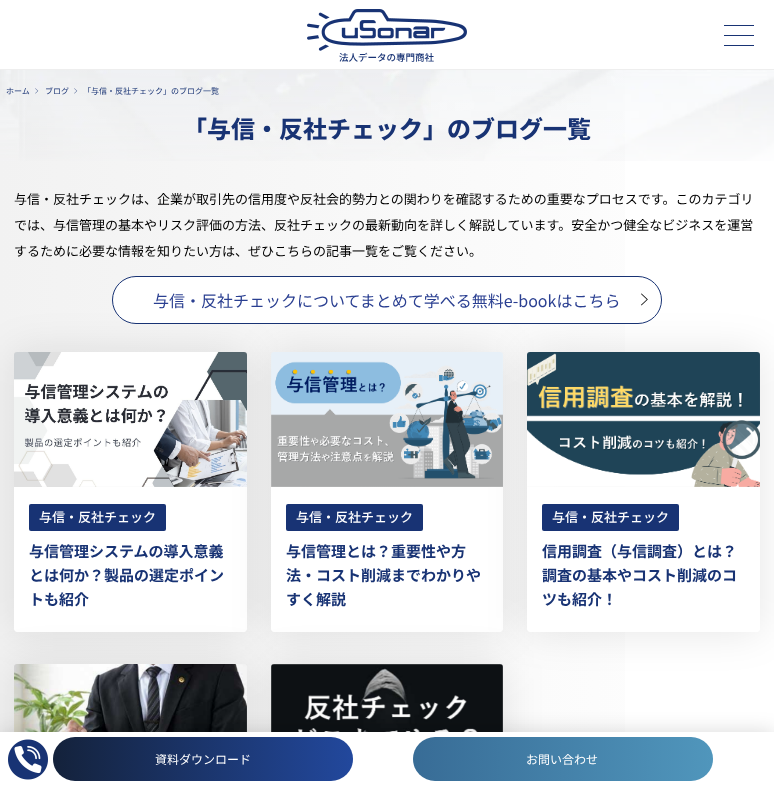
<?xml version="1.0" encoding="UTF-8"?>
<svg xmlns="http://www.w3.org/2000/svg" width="774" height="787">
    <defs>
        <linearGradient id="g1" gradientUnits="userSpaceOnUse" x1="0" y1="128" x2="774" y2="128"><stop offset="0" stop-color="#F2F2F2"/><stop offset="1" stop-color="#FFFFFF"/></linearGradient>
        <linearGradient id="g2" gradientUnits="userSpaceOnUse" x1="0" y1="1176" x2="774" y2="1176"><stop offset="0" stop-color="#F2F2F2"/><stop offset="1" stop-color="#FFFFFF"/></linearGradient>
        <filter id="blur1" x="-50%" y="-200%" width="200%" height="500%"><feGaussianBlur stdDeviation="20"/></filter>
        <filter id="blur2" x="-50%" y="-200%" width="200%" height="500%"><feGaussianBlur stdDeviation="10"/></filter>
        <linearGradient id="g3" gradientUnits="userSpaceOnUse" x1="53" y1="759" x2="353" y2="759"><stop offset="0" stop-color="#14223B"/><stop offset="1" stop-color="#22489D"/></linearGradient>
        <linearGradient id="g4" gradientUnits="userSpaceOnUse" x1="413" y1="759" x2="713" y2="759"><stop offset="0" stop-color="#386C96"/><stop offset="1" stop-color="#5096BC"/></linearGradient>
    </defs>
    <rect width="100%" height="100%" fill="#FFFFFF"/>
    <rect x="724" y="35" width="30" height="1" fill="#183374"/>
    <rect x="724" y="25" width="30" height="1" fill="#183374"/>
    <rect x="724" y="45" width="30" height="1" fill="#183374"/>
    <rect x="0" y="69" width="774" height="1" fill="#EEEEEE"/>
    <image x="307" y="9" width="160" height="42" href="img_01.png"/>
    <text x="339" y="61" font-family="Noto Sans JP" font-size="9.5" font-weight="500" fill="#183374">法人データの専門商社</text>
    <rect x="0" y="70" width="625" height="116" fill="url(#g1)"/>
    <image x="0" y="70" width="774" height="91" href="img_04.png"/>
    <text x="6" y="94" font-family="Noto Sans JP" font-size="8" fill="#183374">ホーム</text>
    <image x="35" y="88" width="4" height="6" href="img_02.png"/>
    <text x="45" y="94" font-family="Noto Sans JP" font-size="8" fill="#183374">ブログ</text>
    <image x="74" y="88" width="4" height="6" href="img_03.png"/>
    <text x="83" y="94" font-family="Noto Sans JP" font-size="8" fill="#183374">「与信・反社チェック」のブログ一覧</text>
    <text x="183" y="138" font-family="Noto Sans JP" font-size="24" font-weight="800" fill="#183374">「与信・反社チェック」のブログ一覧</text>
    <rect x="0" y="186" width="625" height="546" fill="url(#g2)"/>
    <text x="14" y="204" font-family="Noto Sans JP" font-size="13" fill="#000000">与信・反社チェックは、企業が取引先の信用度や反社会的勢力との関わりを確認するための重要なプロセスです。このカテゴリ</text>
    <text x="14" y="230" font-family="Noto Sans JP" font-size="13" fill="#000000">では、与信管理の基本やリスク評価の方法、反社チェックの最新動向を詳しく解説しています。安全かつ健全なビジネスを運営</text>
    <text x="14" y="256" font-family="Noto Sans JP" font-size="13" fill="#000000">するために必要な情報を知りたい方は、ぜひこちらの記事一覧をご覧ください。</text>
    <rect x="14" y="352" width="233" height="280" rx="3" fill="#000000" fill-opacity="0.1" filter="url(#blur1)"/>
    <path d="M 14 487 H 247 V 629 C 247 630.5 245.5 632 244 632 H 17 C 15.5 632 14 630.5 14 629 Z" fill="#FFFFFF"/>
    <rect x="271" y="352" width="232" height="280" rx="3" fill="#000000" fill-opacity="0.1" filter="url(#blur1)"/>
    <path d="M 271 487 H 503 V 629 C 503 630.5 501.5 632 500 632 H 274 C 272.5 632 271 630.5 271 629 Z" fill="#FFFFFF"/>
    <rect x="527" y="352" width="233" height="280" rx="3" fill="#000000" fill-opacity="0.1" filter="url(#blur1)"/>
    <rect x="112.5" y="276.5" width="549" height="47" rx="23.5" fill="#FFFFFF" stroke="#183374"/>
    <text x="153" y="307" font-family="Noto Sans JP" font-size="16" fill="#2A3F91">与信・反社チェックについてまとめて学べる無料e-bookはこちら</text>
    <image x="641" y="293" width="7" height="13" href="img_05.png"/>
    <image x="14" y="352" width="233" height="135" href="img_06.png"/>
    <rect x="29" y="504" width="137" height="27" rx="2" fill="#183374"/>
    <text x="39" y="522" font-family="Noto Sans JP" font-size="13" font-weight="500" fill="#FFFFFF">与信・反社チェック</text>
    <text font-family="Noto Sans JP" font-size="15" font-weight="700" fill="#183374">
        <tspan x="29" y="557">与信管理システムの導入意義</tspan>
        <tspan x="29" y="581">とは何か？製品の選定ポイン</tspan>
        <tspan x="29" y="605">トも紹介</tspan>
    </text>
    <image x="271" y="352" width="232" height="135" href="img_07.png"/>
    <rect x="286" y="504" width="137" height="27" rx="2" fill="#183374"/>
    <text x="296" y="522" font-family="Noto Sans JP" font-size="13" font-weight="500" fill="#FFFFFF">与信・反社チェック</text>
    <text font-family="Noto Sans JP" font-size="15" font-weight="700" fill="#183374">
        <tspan x="286" y="557">与信管理とは？重要性や方</tspan>
        <tspan x="286" y="581">法・コスト削減までわかりや</tspan>
        <tspan x="286" y="605">すく解説</tspan>
    </text>
    <image x="527" y="352" width="233" height="135" href="img_08.png"/>
    <path d="M 527 487 H 760 V 629 C 760 630.5 758.5 632 757 632 H 530 C 528.5 632 527 630.5 527 629 Z" fill="#FFFFFF"/>
    <rect x="542" y="504" width="137" height="27" rx="2" fill="#183374"/>
    <text x="552" y="522" font-family="Noto Sans JP" font-size="13" font-weight="500" fill="#FFFFFF">与信・反社チェック</text>
    <text font-family="Noto Sans JP" font-size="15" font-weight="700" fill="#183374">
        <tspan x="542" y="557">信用調査（与信調査）とは？</tspan>
        <tspan x="542" y="581">調査の基本やコスト削減のコ</tspan>
        <tspan x="542" y="605">ツも紹介！</tspan>
    </text>
    <rect x="14" y="664" width="233" height="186" rx="3" fill="#000000" fill-opacity="0.1" filter="url(#blur1)"/>
    <rect x="271" y="664" width="232" height="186" rx="3" fill="#000000" fill-opacity="0.1" filter="url(#blur1)"/>
    <image x="14" y="664" width="233" height="68" href="img_09.png"/>
    <image x="271" y="664" width="232" height="68" href="img_10.png"/>
    <rect x="0" y="732" width="774" height="55" fill="#000000" fill-opacity="0.15" filter="url(#blur2)"/>
    <rect x="0" y="732" width="774" height="55" fill="#FFFFFF"/>
    <image x="8" y="739" width="40" height="41" href="img_11.png"/>
    <rect x="53" y="737" width="300" height="44" rx="22" fill="url(#g3)"/>
    <text x="155" y="764" font-family="Noto Sans JP" font-size="12" fill="#FFFFFF">資料ダウンロード</text>
    <rect x="413" y="737" width="300" height="44" rx="22" fill="url(#g4)"/>
    <text x="526" y="764" font-family="Noto Sans JP" font-size="12" fill="#FFFFFF">お問い合わせ</text>
</svg>
